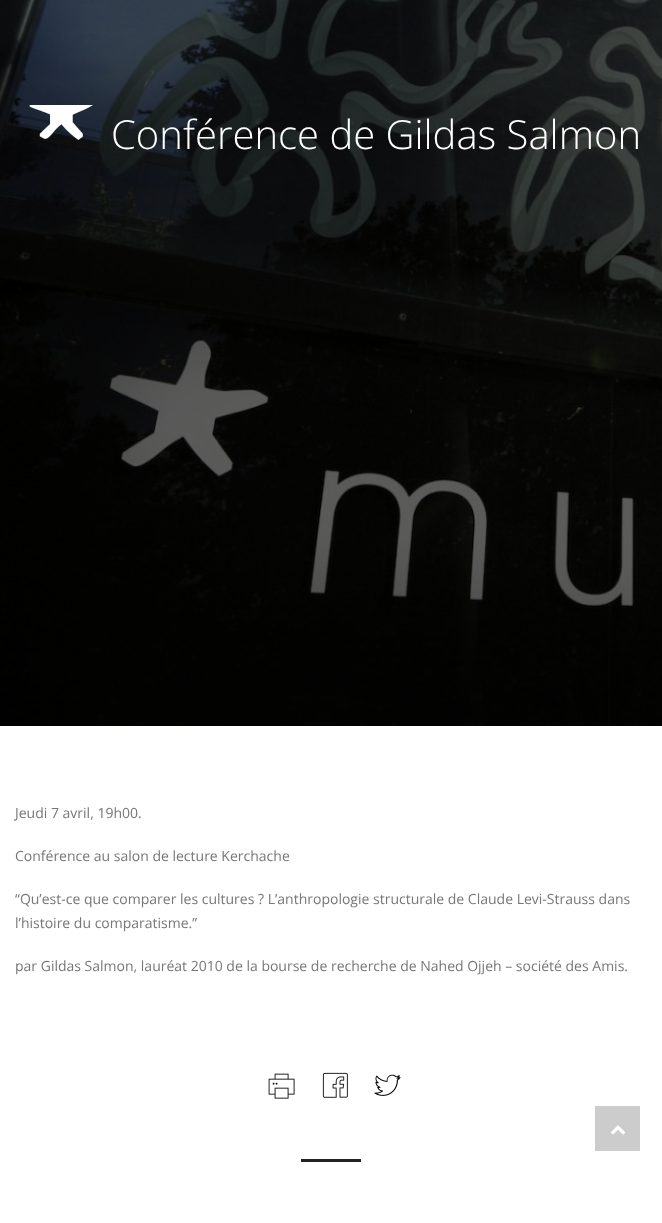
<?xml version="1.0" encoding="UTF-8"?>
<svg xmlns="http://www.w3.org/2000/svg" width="662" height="1223">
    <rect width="100%" height="100%" fill="#FFFFFF"/>
    <image x="0" y="0" width="662" height="726" href="img_01.png"/>
    <image x="29" y="105" width="64" height="35" href="img_02.png"/>
    <text x="111" y="149" font-family="Open Sans" font-size="40" font-weight="300" fill="#FFFFFF">Conférence de Gildas Salmon</text>
    <text x="15" y="818" font-family="Open Sans" font-size="14" fill="#777777">Jeudi 7 avril, 19h00.</text>
    <text x="15" y="861" font-family="Open Sans" font-size="14" fill="#777777">Conférence au salon de lecture Kerchache</text>
    <text font-family="Open Sans" font-size="14" fill="#777777">
        <tspan x="15" y="904">“Qu’est-ce que comparer les cultures ? L’anthropologie structurale de Claude Levi-Strauss dans</tspan>
        <tspan x="15" y="928">l’histoire du comparatisme.”</tspan>
    </text>
    <text x="15" y="971" font-family="Open Sans" font-size="14" fill="#777777">par Gildas Salmon, lauréat 2010 de la bourse de recherche de Nahed Ojjeh – société des Amis.</text>
    <image x="268" y="1073" width="27" height="26" href="img_03.png"/>
    <image x="322" y="1072" width="26" height="26" href="img_04.png"/>
    <image x="374" y="1074" width="27" height="22" href="img_05.png"/>
    <rect x="301" y="1159" width="60" height="3" fill="#222222"/>
    <rect x="595" y="1106" width="45" height="45" fill="#CCCCCC"/>
    <image x="610" y="1125" width="16" height="10" href="img_06.png"/>
</svg>
